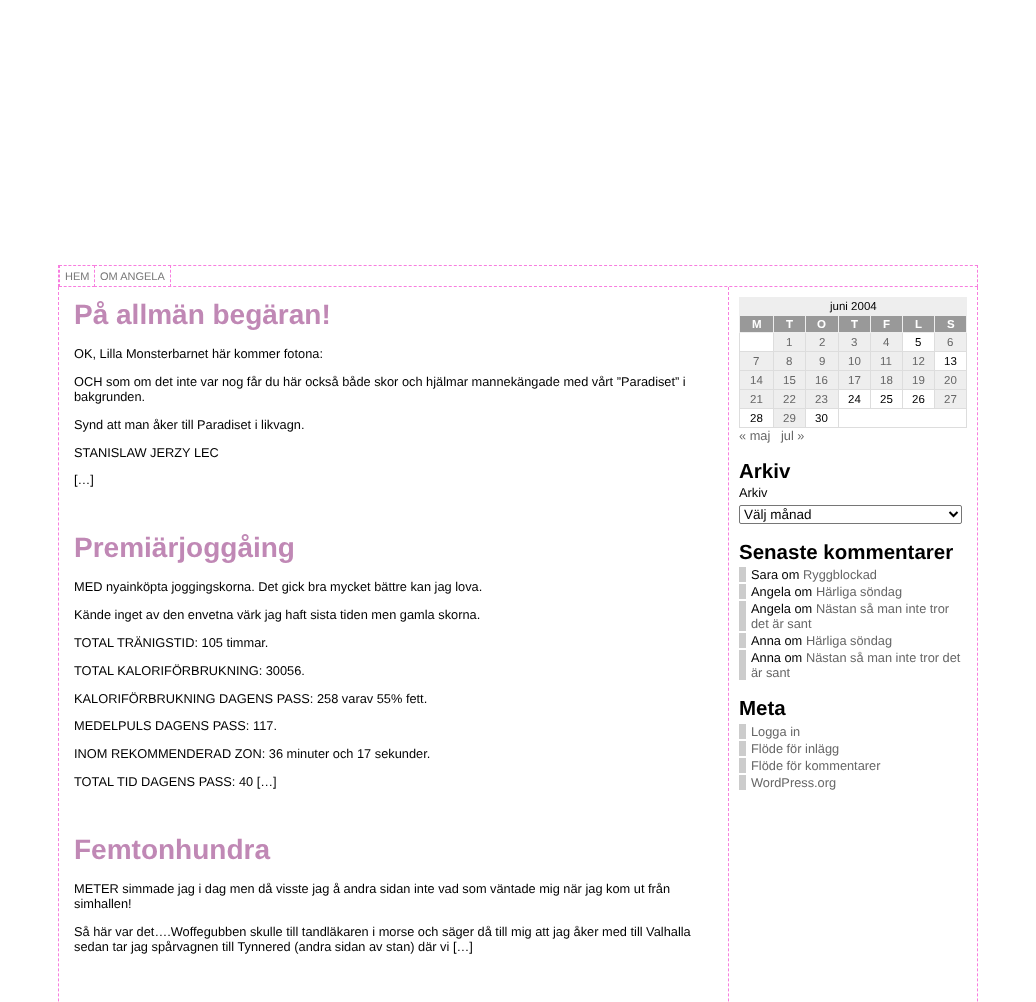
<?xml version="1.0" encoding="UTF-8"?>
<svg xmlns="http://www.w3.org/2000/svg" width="1036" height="1002">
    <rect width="100%" height="100%" fill="#FFFFFF"/>
    <path d="M 58 265.5 H 978" fill="none" stroke="#F87DDF" stroke-dasharray="3 2.01"/>
    <path d="M 977.5 265 V 287" fill="none" stroke="#F87DDF" stroke-dasharray="3 1.75"/>
    <path d="M 58 286.5 H 978" fill="none" stroke="#F87DDF" stroke-dasharray="3 2.01"/>
    <path d="M 58.5 265 V 287" fill="none" stroke="#F87DDF" stroke-dasharray="3 1.75"/>
    <rect x="59" y="265" width="35" height="22" fill="#FFFFFF"/>
    <path d="M 59 265.5 H 95 M 59 286.5 H 95" fill="none" stroke="#F87DDF" stroke-dasharray="3 1.71"/>
    <path d="M 59.5 265 V 287" fill="none" stroke="#F87DDF" stroke-dasharray="3 1.75"/>
    <text x="65" y="280" font-family="Liberation Sans" font-size="11" fill="#777777">HEM</text>
    <rect x="94" y="265" width="77" height="22" fill="#FFFFFF"/>
    <path d="M 94 265.5 H 171" fill="none" stroke="#F87DDF" stroke-dasharray="3 1.93"/>
    <path d="M 170.5 265 V 287" fill="none" stroke="#F87DDF" stroke-dasharray="3 1.75"/>
    <path d="M 94 286.5 H 171" fill="none" stroke="#F87DDF" stroke-dasharray="3 1.93"/>
    <path d="M 94.5 265 V 287" fill="none" stroke="#F87DDF" stroke-dasharray="3 1.75"/>
    <text x="100" y="280" font-family="Liberation Sans" font-size="11" fill="#777777">OM ANGELA</text>
    <path d="M 58.5 287 V 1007" fill="none" stroke="#F87DDF" stroke-dasharray="3 2.01"/>
    <text x="74" y="324" font-family="Liberation Sans" font-size="28" font-weight="700" fill="#C088B5">På allmän begäran!</text>
    <text x="74" y="358" font-family="Liberation Sans" font-size="12.8" fill="#000000">OK, Lilla Monsterbarnet här kommer fotona:</text>
    <text font-family="Liberation Sans" font-size="12.8" fill="#000000">
        <tspan x="74" y="386">OCH som om det inte var nog får du här också både skor och hjälmar mannekängade med vårt ”Paradiset” i</tspan>
        <tspan x="74" y="401">bakgrunden.</tspan>
    </text>
    <text x="74" y="429" font-family="Liberation Sans" font-size="12.8" fill="#000000">Synd att man åker till Paradiset i likvagn.</text>
    <text x="74" y="457" font-family="Liberation Sans" font-size="12.8" fill="#000000">STANISLAW JERZY LEC</text>
    <text x="74" y="484" font-family="Liberation Sans" font-size="12.8" fill="#000000">[…]</text>
    <text x="74" y="557" font-family="Liberation Sans" font-size="28" font-weight="700" fill="#C088B5">Premiärjoggåing</text>
    <text x="74" y="591" font-family="Liberation Sans" font-size="12.8" fill="#000000">MED nyainköpta joggingskorna. Det gick bra mycket bättre kan jag lova.</text>
    <text x="74" y="619" font-family="Liberation Sans" font-size="12.8" fill="#000000">Kände inget av den envetna värk jag haft sista tiden men gamla skorna.</text>
    <text x="74" y="647" font-family="Liberation Sans" font-size="12.8" fill="#000000">TOTAL TRÄNIGSTID: 105 timmar.</text>
    <text x="74" y="675" font-family="Liberation Sans" font-size="12.8" fill="#000000">TOTAL KALORIFÖRBRUKNING: 30056.</text>
    <text x="74" y="703" font-family="Liberation Sans" font-size="12.8" fill="#000000">KALORIFÖRBRUKNING DAGENS PASS: 258 varav 55% fett.</text>
    <text x="74" y="730" font-family="Liberation Sans" font-size="12.8" fill="#000000">MEDELPULS DAGENS PASS: 117.</text>
    <text x="74" y="758" font-family="Liberation Sans" font-size="12.8" fill="#000000">INOM REKOMMENDERAD ZON: 36 minuter och 17 sekunder.</text>
    <text x="74" y="786" font-family="Liberation Sans" font-size="12.8" fill="#000000">TOTAL TID DAGENS PASS: 40 […]</text>
    <text x="74" y="859" font-family="Liberation Sans" font-size="28" font-weight="700" fill="#C088B5">Femtonhundra</text>
    <text font-family="Liberation Sans" font-size="12.8" fill="#000000">
        <tspan x="74" y="893">METER simmade jag i dag men då visste jag å andra sidan inte vad som väntade mig när jag kom ut från</tspan>
        <tspan x="74" y="908">simhallen!</tspan>
    </text>
    <text font-family="Liberation Sans" font-size="12.8" fill="#000000">
        <tspan x="74" y="936">Så här var det….Woffegubben skulle till tandläkaren i morse och säger då till mig att jag åker med till Valhalla</tspan>
        <tspan x="74" y="951">sedan tar jag spårvagnen till Tynnered (andra sidan av stan) där vi […]</tspan>
    </text>
    <path d="M 977.5 287 V 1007" fill="none" stroke="#F87DDF" stroke-dasharray="3 2.01"/>
    <path d="M 728.5 287 V 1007" fill="none" stroke="#F87DDF" stroke-dasharray="3 2.01"/>
    <rect x="739" y="297" width="228" height="18" fill="#EEEEEE"/>
    <text x="830" y="310" font-family="Liberation Sans" font-size="11.5" fill="#000000">juni 2004</text>
    <rect x="740" y="316" width="33" height="16" fill="#999999"/>
    <rect x="934" y="315" width="33" height="1" fill="#EEEEEE"/>
    <rect x="934" y="351" width="33" height="1" fill="#DDDDDD"/>
    <rect x="934" y="370" width="33" height="1" fill="#DDDDDD"/>
    <rect x="934" y="389" width="33" height="1" fill="#DDDDDD"/>
    <rect x="838" y="408" width="129" height="1" fill="#DDDDDD"/>
    <rect x="966" y="408" width="1" height="20" fill="#DDDDDD"/>
    <rect x="966" y="389" width="1" height="20" fill="#DDDDDD"/>
    <rect x="966" y="370" width="1" height="20" fill="#DDDDDD"/>
    <rect x="966" y="332" width="1" height="39" fill="#DDDDDD"/>
    <rect x="966" y="315" width="1" height="18" fill="#EEEEEE"/>
    <rect x="934" y="389" width="1" height="20" fill="#DDDDDD"/>
    <rect x="902" y="389" width="33" height="1" fill="#DDDDDD"/>
    <rect x="934" y="370" width="1" height="20" fill="#DDDDDD"/>
    <rect x="902" y="370" width="33" height="1" fill="#DDDDDD"/>
    <rect x="934" y="351" width="1" height="20" fill="#DDDDDD"/>
    <rect x="902" y="351" width="33" height="1" fill="#DDDDDD"/>
    <rect x="934" y="332" width="1" height="20" fill="#DDDDDD"/>
    <rect x="934" y="332" width="33" height="1" fill="#EEEEEE"/>
    <rect x="934" y="315" width="1" height="18" fill="#EEEEEE"/>
    <rect x="902" y="315" width="33" height="1" fill="#EEEEEE"/>
    <rect x="902" y="389" width="1" height="20" fill="#DDDDDD"/>
    <rect x="870" y="389" width="33" height="1" fill="#DDDDDD"/>
    <rect x="902" y="370" width="1" height="20" fill="#DDDDDD"/>
    <rect x="870" y="370" width="33" height="1" fill="#DDDDDD"/>
    <rect x="902" y="351" width="1" height="20" fill="#DDDDDD"/>
    <rect x="870" y="351" width="33" height="1" fill="#DDDDDD"/>
    <rect x="902" y="332" width="1" height="20" fill="#DDDDDD"/>
    <rect x="902" y="332" width="33" height="1" fill="#EEEEEE"/>
    <rect x="902" y="315" width="1" height="18" fill="#EEEEEE"/>
    <rect x="870" y="315" width="33" height="1" fill="#EEEEEE"/>
    <rect x="870" y="389" width="1" height="20" fill="#DDDDDD"/>
    <rect x="838" y="389" width="33" height="1" fill="#DDDDDD"/>
    <rect x="870" y="370" width="1" height="20" fill="#DDDDDD"/>
    <rect x="838" y="370" width="33" height="1" fill="#DDDDDD"/>
    <rect x="870" y="351" width="1" height="20" fill="#DDDDDD"/>
    <rect x="838" y="351" width="33" height="1" fill="#DDDDDD"/>
    <rect x="870" y="332" width="1" height="20" fill="#DDDDDD"/>
    <rect x="870" y="332" width="33" height="1" fill="#EEEEEE"/>
    <rect x="870" y="315" width="1" height="18" fill="#EEEEEE"/>
    <rect x="838" y="315" width="33" height="1" fill="#EEEEEE"/>
    <rect x="838" y="427" width="129" height="1" fill="#DDDDDD"/>
    <rect x="838" y="408" width="1" height="20" fill="#DDDDDD"/>
    <rect x="805" y="408" width="34" height="1" fill="#DDDDDD"/>
    <rect x="838" y="389" width="1" height="20" fill="#DDDDDD"/>
    <rect x="805" y="389" width="34" height="1" fill="#DDDDDD"/>
    <rect x="838" y="370" width="1" height="20" fill="#DDDDDD"/>
    <rect x="805" y="370" width="34" height="1" fill="#DDDDDD"/>
    <rect x="838" y="351" width="1" height="20" fill="#DDDDDD"/>
    <rect x="805" y="351" width="34" height="1" fill="#DDDDDD"/>
    <rect x="838" y="332" width="1" height="20" fill="#DDDDDD"/>
    <rect x="838" y="332" width="33" height="1" fill="#EEEEEE"/>
    <rect x="838" y="315" width="1" height="18" fill="#EEEEEE"/>
    <rect x="805" y="315" width="34" height="1" fill="#EEEEEE"/>
    <rect x="805" y="427" width="34" height="1" fill="#DDDDDD"/>
    <rect x="805" y="408" width="1" height="20" fill="#DDDDDD"/>
    <rect x="773" y="408" width="33" height="1" fill="#DDDDDD"/>
    <rect x="805" y="389" width="1" height="20" fill="#DDDDDD"/>
    <rect x="773" y="389" width="33" height="1" fill="#DDDDDD"/>
    <rect x="805" y="370" width="1" height="20" fill="#DDDDDD"/>
    <rect x="773" y="370" width="33" height="1" fill="#DDDDDD"/>
    <rect x="805" y="351" width="1" height="20" fill="#DDDDDD"/>
    <rect x="773" y="351" width="33" height="1" fill="#DDDDDD"/>
    <rect x="805" y="332" width="1" height="20" fill="#DDDDDD"/>
    <rect x="805" y="332" width="34" height="1" fill="#EEEEEE"/>
    <rect x="805" y="315" width="1" height="18" fill="#EEEEEE"/>
    <rect x="773" y="315" width="33" height="1" fill="#EEEEEE"/>
    <rect x="773" y="427" width="33" height="1" fill="#DDDDDD"/>
    <rect x="773" y="408" width="1" height="20" fill="#DDDDDD"/>
    <rect x="739" y="408" width="35" height="1" fill="#DDDDDD"/>
    <rect x="773" y="389" width="1" height="20" fill="#DDDDDD"/>
    <rect x="739" y="389" width="35" height="1" fill="#DDDDDD"/>
    <rect x="773" y="370" width="1" height="20" fill="#DDDDDD"/>
    <rect x="739" y="370" width="35" height="1" fill="#DDDDDD"/>
    <rect x="773" y="351" width="1" height="20" fill="#DDDDDD"/>
    <rect x="739" y="351" width="35" height="1" fill="#DDDDDD"/>
    <rect x="773" y="332" width="1" height="20" fill="#DDDDDD"/>
    <rect x="773" y="332" width="33" height="1" fill="#EEEEEE"/>
    <rect x="773" y="315" width="1" height="18" fill="#EEEEEE"/>
    <rect x="739" y="315" width="35" height="1" fill="#EEEEEE"/>
    <rect x="739" y="427" width="35" height="1" fill="#DDDDDD"/>
    <rect x="739" y="408" width="1" height="20" fill="#DDDDDD"/>
    <rect x="739" y="389" width="1" height="20" fill="#DDDDDD"/>
    <rect x="739" y="370" width="1" height="20" fill="#DDDDDD"/>
    <rect x="739" y="332" width="1" height="39" fill="#DDDDDD"/>
    <rect x="739" y="332" width="35" height="1" fill="#EEEEEE"/>
    <rect x="739" y="315" width="1" height="18" fill="#EEEEEE"/>
    <text x="752" y="328" font-family="Liberation Sans" font-size="11.5" font-weight="700" fill="#FFFFFF">M</text>
    <rect x="774" y="316" width="31" height="16" fill="#999999"/>
    <text x="786" y="328" font-family="Liberation Sans" font-size="11.5" font-weight="700" fill="#FFFFFF">T</text>
    <rect x="806" y="316" width="32" height="16" fill="#999999"/>
    <text x="817" y="328" font-family="Liberation Sans" font-size="11.5" font-weight="700" fill="#FFFFFF">O</text>
    <rect x="839" y="316" width="31" height="16" fill="#999999"/>
    <text x="851" y="328" font-family="Liberation Sans" font-size="11.5" font-weight="700" fill="#FFFFFF">T</text>
    <rect x="871" y="316" width="31" height="16" fill="#999999"/>
    <text x="883" y="328" font-family="Liberation Sans" font-size="11.5" font-weight="700" fill="#FFFFFF">F</text>
    <rect x="903" y="316" width="31" height="16" fill="#999999"/>
    <text x="915" y="328" font-family="Liberation Sans" font-size="11.5" font-weight="700" fill="#FFFFFF">L</text>
    <rect x="935" y="316" width="31" height="16" fill="#999999"/>
    <text x="947" y="328" font-family="Liberation Sans" font-size="11.5" font-weight="700" fill="#FFFFFF">S</text>
    <rect x="774" y="333" width="31" height="18" fill="#EEEEEE"/>
    <text x="786" y="346" font-family="Liberation Sans" font-size="11.5" fill="#666666">1</text>
    <rect x="806" y="333" width="32" height="18" fill="#EEEEEE"/>
    <text x="819" y="346" font-family="Liberation Sans" font-size="11.5" fill="#666666">2</text>
    <rect x="839" y="333" width="31" height="18" fill="#EEEEEE"/>
    <text x="851" y="346" font-family="Liberation Sans" font-size="11.5" fill="#666666">3</text>
    <rect x="871" y="333" width="31" height="18" fill="#EEEEEE"/>
    <text x="883" y="346" font-family="Liberation Sans" font-size="11.5" fill="#666666">4</text>
    <text x="915" y="346" font-family="Liberation Sans" font-size="11.5" fill="#000000">5</text>
    <rect x="935" y="333" width="31" height="18" fill="#EEEEEE"/>
    <text x="947" y="346" font-family="Liberation Sans" font-size="11.5" fill="#666666">6</text>
    <rect x="740" y="352" width="33" height="18" fill="#EEEEEE"/>
    <text x="753" y="365" font-family="Liberation Sans" font-size="11.5" fill="#666666">7</text>
    <rect x="774" y="352" width="31" height="18" fill="#EEEEEE"/>
    <text x="786" y="365" font-family="Liberation Sans" font-size="11.5" fill="#666666">8</text>
    <rect x="806" y="352" width="32" height="18" fill="#EEEEEE"/>
    <text x="819" y="365" font-family="Liberation Sans" font-size="11.5" fill="#666666">9</text>
    <rect x="839" y="352" width="31" height="18" fill="#EEEEEE"/>
    <text x="848" y="365" font-family="Liberation Sans" font-size="11.5" fill="#666666">10</text>
    <rect x="871" y="352" width="31" height="18" fill="#EEEEEE"/>
    <text x="880" y="365" font-family="Liberation Sans" font-size="11.5" fill="#666666">11</text>
    <rect x="903" y="352" width="31" height="18" fill="#EEEEEE"/>
    <text x="912" y="365" font-family="Liberation Sans" font-size="11.5" fill="#666666">12</text>
    <text x="944" y="365" font-family="Liberation Sans" font-size="11.5" fill="#000000">13</text>
    <rect x="740" y="371" width="33" height="18" fill="#EEEEEE"/>
    <text x="750" y="384" font-family="Liberation Sans" font-size="11.5" fill="#666666">14</text>
    <rect x="774" y="371" width="31" height="18" fill="#EEEEEE"/>
    <text x="783" y="384" font-family="Liberation Sans" font-size="11.5" fill="#666666">15</text>
    <rect x="806" y="371" width="32" height="18" fill="#EEEEEE"/>
    <text x="815" y="384" font-family="Liberation Sans" font-size="11.5" fill="#666666">16</text>
    <rect x="839" y="371" width="31" height="18" fill="#EEEEEE"/>
    <text x="848" y="384" font-family="Liberation Sans" font-size="11.5" fill="#666666">17</text>
    <rect x="871" y="371" width="31" height="18" fill="#EEEEEE"/>
    <text x="880" y="384" font-family="Liberation Sans" font-size="11.5" fill="#666666">18</text>
    <rect x="903" y="371" width="31" height="18" fill="#EEEEEE"/>
    <text x="912" y="384" font-family="Liberation Sans" font-size="11.5" fill="#666666">19</text>
    <rect x="935" y="371" width="31" height="18" fill="#EEEEEE"/>
    <text x="944" y="384" font-family="Liberation Sans" font-size="11.5" fill="#666666">20</text>
    <rect x="740" y="390" width="33" height="18" fill="#EEEEEE"/>
    <text x="750" y="403" font-family="Liberation Sans" font-size="11.5" fill="#666666">21</text>
    <rect x="774" y="390" width="31" height="18" fill="#EEEEEE"/>
    <text x="783" y="403" font-family="Liberation Sans" font-size="11.5" fill="#666666">22</text>
    <rect x="806" y="390" width="32" height="18" fill="#EEEEEE"/>
    <text x="815" y="403" font-family="Liberation Sans" font-size="11.5" fill="#666666">23</text>
    <text x="848" y="403" font-family="Liberation Sans" font-size="11.5" fill="#000000">24</text>
    <text x="880" y="403" font-family="Liberation Sans" font-size="11.5" fill="#000000">25</text>
    <text x="912" y="403" font-family="Liberation Sans" font-size="11.5" fill="#000000">26</text>
    <rect x="935" y="390" width="31" height="18" fill="#EEEEEE"/>
    <text x="944" y="403" font-family="Liberation Sans" font-size="11.5" fill="#666666">27</text>
    <text x="750" y="422" font-family="Liberation Sans" font-size="11.5" fill="#000000">28</text>
    <rect x="774" y="409" width="31" height="18" fill="#EEEEEE"/>
    <text x="783" y="422" font-family="Liberation Sans" font-size="11.5" fill="#666666">29</text>
    <text x="815" y="422" font-family="Liberation Sans" font-size="11.5" fill="#000000">30</text>
    <text x="739" y="440" font-family="Liberation Sans" font-size="12.8" fill="#666666">« maj</text>
    <text x="781" y="440" font-family="Liberation Sans" font-size="12.8" fill="#666666">jul »</text>
    <text x="739" y="478" font-family="Liberation Sans" font-size="20.5" font-weight="700" fill="#000000">Arkiv</text>
    <text x="739" y="497" font-family="Liberation Sans" font-size="12.8" fill="#000000">Arkiv</text>
    <rect x="739.5" y="505.5" width="222" height="18" rx="1.5" fill="none" stroke="#767676"/>
    <path d="M 949.5 512 L 953.5 516 L 957.5 512" fill="none" stroke="#000000" stroke-width="2"/>
    <text x="744" y="519" font-family="Liberation Sans" font-size="13.5" fill="#000000">Välj månad</text>
    <text x="739" y="559" font-family="Liberation Sans" font-size="20.5" font-weight="700" fill="#000000">Senaste kommentarer</text>
    <rect x="739" y="567" width="7" height="15" fill="#CCCCCC"/>
    <text x="751" y="579" font-family="Liberation Sans" font-size="12.8" fill="#000000">Sara om</text>
    <text x="803" y="579" font-family="Liberation Sans" font-size="12.8" fill="#666666">Ryggblockad</text>
    <rect x="739" y="584" width="7" height="15" fill="#CCCCCC"/>
    <text x="751" y="596" font-family="Liberation Sans" font-size="12.8" fill="#000000">Angela om</text>
    <text x="816" y="596" font-family="Liberation Sans" font-size="12.8" fill="#666666">Härliga söndag</text>
    <rect x="739" y="601" width="7" height="30" fill="#CCCCCC"/>
    <text x="751" y="613" font-family="Liberation Sans" font-size="12.8" fill="#000000">Angela om</text>
    <text x="816" y="613" font-family="Liberation Sans" font-size="12.8" fill="#666666">Nästan så man inte tror</text>
    <text x="751" y="628" font-family="Liberation Sans" font-size="12.8" fill="#666666">det är sant</text>
    <rect x="739" y="633" width="7" height="15" fill="#CCCCCC"/>
    <text x="751" y="645" font-family="Liberation Sans" font-size="12.8" fill="#000000">Anna om</text>
    <text x="806" y="645" font-family="Liberation Sans" font-size="12.8" fill="#666666">Härliga söndag</text>
    <rect x="739" y="650" width="7" height="30" fill="#CCCCCC"/>
    <text x="751" y="662" font-family="Liberation Sans" font-size="12.8" fill="#000000">Anna om</text>
    <text x="806" y="662" font-family="Liberation Sans" font-size="12.8" fill="#666666">Nästan så man inte tror det</text>
    <text x="751" y="677" font-family="Liberation Sans" font-size="12.8" fill="#666666">är sant</text>
    <text x="739" y="715" font-family="Liberation Sans" font-size="20.5" font-weight="700" fill="#000000">Meta</text>
    <rect x="739" y="724" width="7" height="15" fill="#CCCCCC"/>
    <text x="751" y="736" font-family="Liberation Sans" font-size="12.8" fill="#666666">Logga in</text>
    <rect x="739" y="741" width="7" height="15" fill="#CCCCCC"/>
    <text x="751" y="753" font-family="Liberation Sans" font-size="12.8" fill="#666666">Flöde för inlägg</text>
    <rect x="739" y="758" width="7" height="15" fill="#CCCCCC"/>
    <text x="751" y="770" font-family="Liberation Sans" font-size="12.8" fill="#666666">Flöde för kommentarer</text>
    <rect x="739" y="775" width="7" height="15" fill="#CCCCCC"/>
    <text x="751" y="787" font-family="Liberation Sans" font-size="12.8" fill="#666666">WordPress.org</text>
</svg>
